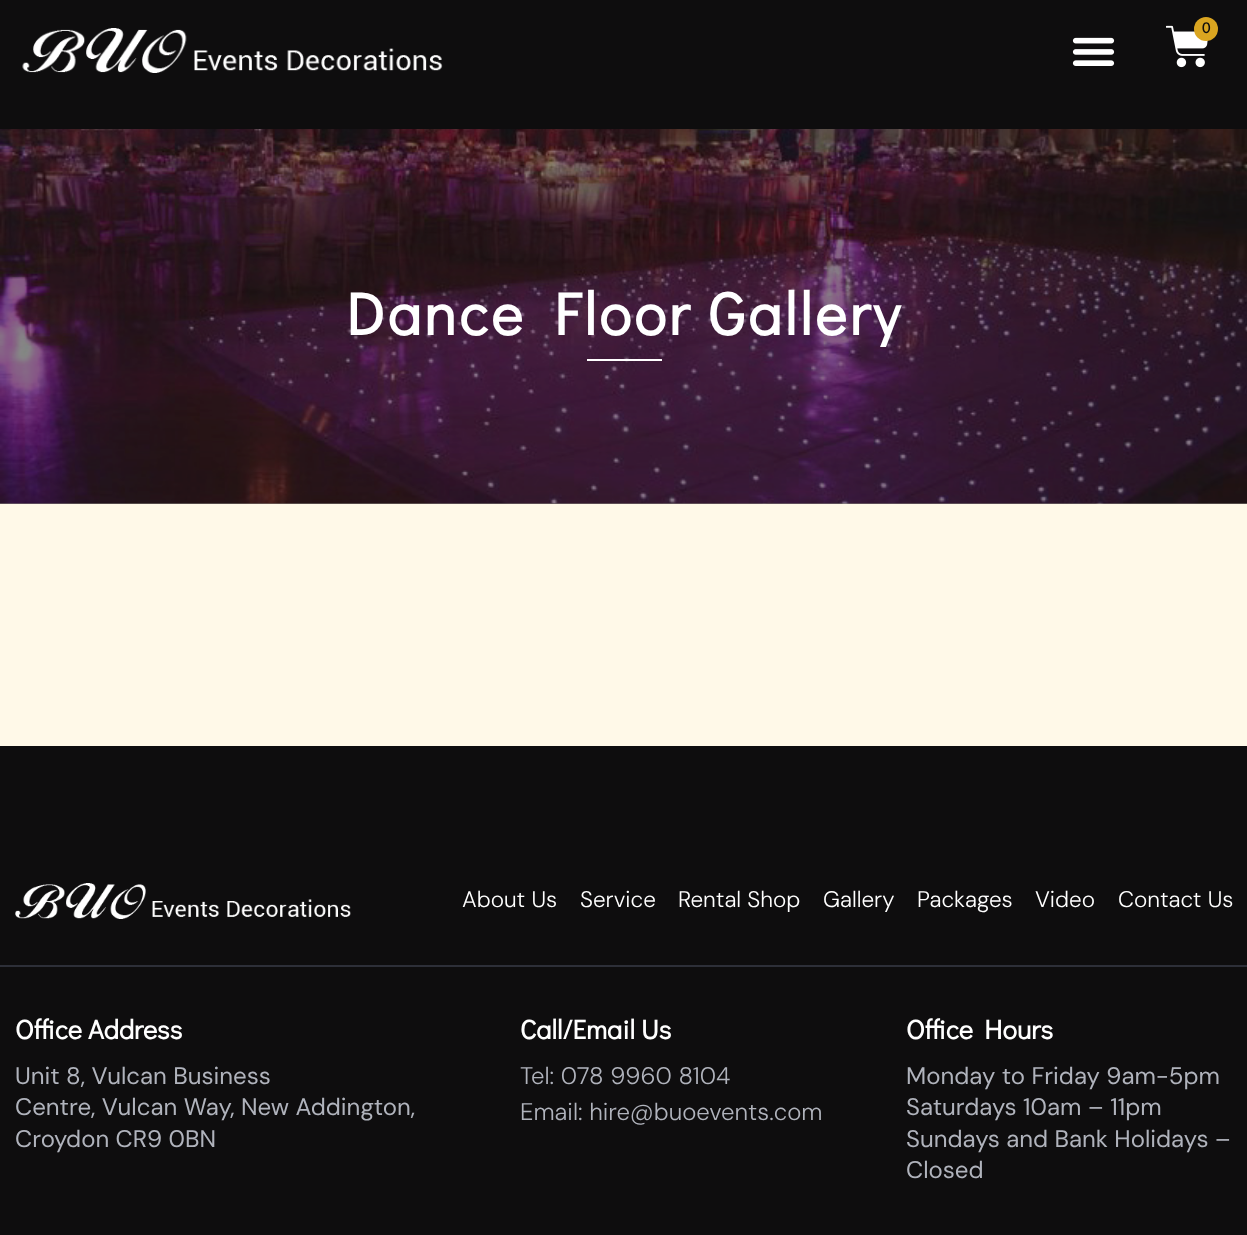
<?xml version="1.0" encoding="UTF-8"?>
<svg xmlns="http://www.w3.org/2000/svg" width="1247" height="1235">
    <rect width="100%" height="100%" fill="#FFF9E8"/>
    <rect x="0" y="503" width="1247" height="1" fill="#87837B"/>
    <rect x="0" y="0" width="1247" height="129" fill="#0E0D0E"/>
    <image x="22" y="28" width="421" height="45" href="img_01.png"/>
    <image x="1166" y="25" width="42" height="43" href="img_02.png"/>
    <circle cx="1206" cy="29" r="12" fill="#DAA520"/>
    <text x="1202" y="33" font-family="Didact Gothic" font-size="15" font-weight="700" fill="#0E0D0E">0</text>
    <image x="1072" y="37" width="43" height="29" href="img_03.png"/>
    <image x="0" y="129" width="1247" height="375" href="img_04.png"/>
    <text x="346" y="335" font-family="Didact Gothic" font-size="60" font-weight="700" letter-spacing="3" fill="#FFFFFF">Dance Floor Gallery</text>
    <rect x="587" y="359" width="75" height="2" fill="#FFFFFF"/>
    <rect x="0" y="746" width="1247" height="489" fill="#0E0D0E"/>
    <rect x="0" y="965" width="1247" height="2" fill="#2D2F38"/>
    <image x="15" y="883" width="336" height="36" href="img_05.png"/>
    <text x="462" y="907" font-family="DM Sans" font-size="22.5" font-weight="300" fill="#FFFFFF">About Us</text>
    <text x="580" y="907" font-family="DM Sans" font-size="22.5" font-weight="300" fill="#FFFFFF">Service</text>
    <text x="678" y="907" font-family="DM Sans" font-size="22.5" font-weight="300" fill="#FFFFFF">Rental Shop</text>
    <text x="823" y="907" font-family="DM Sans" font-size="22.5" font-weight="300" fill="#FFFFFF">Gallery</text>
    <text x="917" y="907" font-family="DM Sans" font-size="22.5" font-weight="300" fill="#FFFFFF">Packages</text>
    <text x="1035" y="907" font-family="DM Sans" font-size="22.5" font-weight="300" fill="#FFFFFF">Video</text>
    <text x="1118" y="907" font-family="DM Sans" font-size="22.5" font-weight="300" fill="#FFFFFF">Contact Us</text>
    <text x="15" y="1039" font-family="Didact Gothic" font-size="27" font-weight="700" fill="#FFFFFF">Office Address</text>
    <text font-family="DM Sans" font-size="24" fill="#B0B3BC">
        <tspan x="15" y="1084">Unit 8, Vulcan Business</tspan>
        <tspan x="15" y="1115">Centre, Vulcan Way, New Addington,</tspan>
        <tspan x="15" y="1147">Croydon CR9 0BN</tspan>
    </text>
    <text x="520" y="1039" font-family="Didact Gothic" font-size="27" font-weight="700" fill="#FFFFFF">Call/Email Us</text>
    <text font-family="DM Sans" font-size="24" font-weight="300" fill="#B0B3BC">
        <tspan x="520" y="1084">Tel: 078 9960 8104</tspan>
        <tspan x="520" y="1120">Email: hire@buoevents.com</tspan>
    </text>
    <text x="906" y="1039" font-family="Didact Gothic" font-size="27" font-weight="700" fill="#FFFFFF">Office Hours</text>
    <text font-family="DM Sans" font-size="24" fill="#B0B3BC">
        <tspan x="906" y="1084">Monday to Friday 9am-5pm</tspan>
        <tspan x="906" y="1115">Saturdays 10am – 11pm</tspan>
        <tspan x="906" y="1147">Sundays and Bank Holidays –</tspan>
        <tspan x="906" y="1178">Closed</tspan>
    </text>
</svg>
